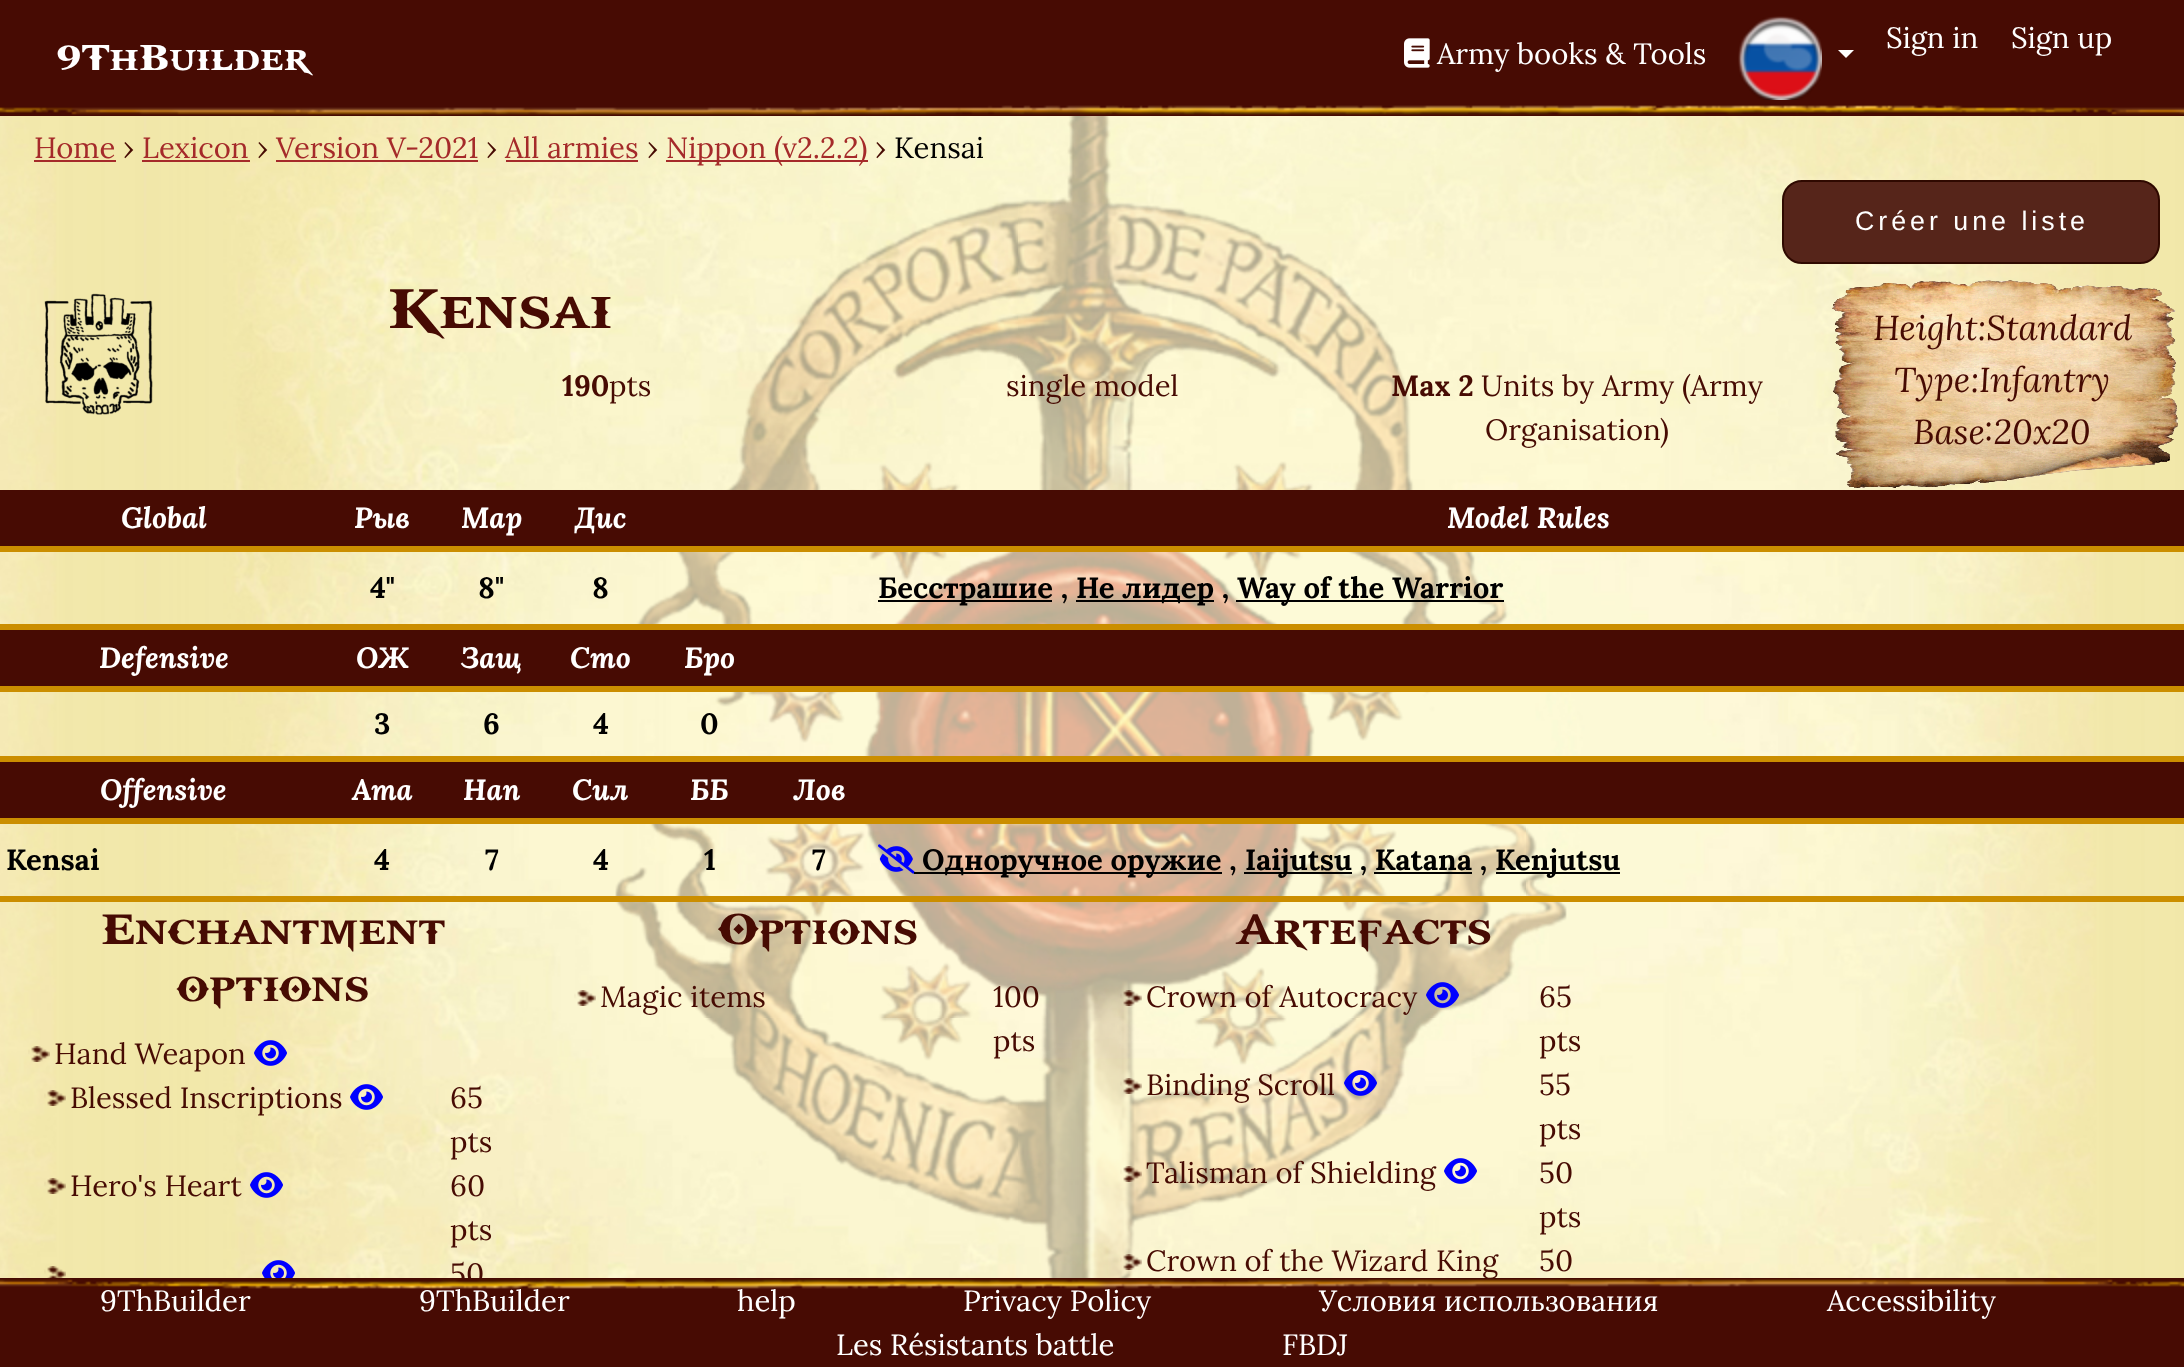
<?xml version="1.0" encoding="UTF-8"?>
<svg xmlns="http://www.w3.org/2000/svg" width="2184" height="1367">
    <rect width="100%" height="100%" fill="#FFFFFF"/>
    <image x="0" y="116" width="2184" height="1162" href="img_01.png"/>
    <rect x="0" y="0" width="2184" height="116" fill="#470B03"/>
    <image x="0" y="105" width="2184" height="10" href="img_02.png"/>
    <text x="56" y="70" font-family="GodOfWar" font-size="40" fill="#FFFFFF">9ThBuilder</text>
    <image x="1404" y="38" width="26" height="30" href="img_03.png"/>
    <text x="1437" y="64" font-family="Lora" font-size="29.25" fill="#FFFFFF">Army books &amp; Tools</text>
    <image x="1738" y="16" width="84" height="84" href="img_04.png"/>
    <path d="M 1838 50 H 1854 L 1846 58 Z" fill="#FFFFFF"/>
    <text x="1886" y="48" font-family="Lora" font-size="29.25" fill="#FFFFFF">Sign in</text>
    <text x="2011" y="48" font-family="Lora" font-size="29.25" fill="#FFFFFF">Sign up</text>
    <image x="615" y="116" width="952" height="1162" href="img_05.png"/>
    <text x="34" y="158" font-family="Lora" font-size="29.25" fill="#A52A2A">Home</text>
    <rect x="34" y="160" width="82" height="2" fill="#A52A2A"/>
    <text x="123" y="158" font-family="Lora" font-size="29.25" fill="#470B03">›</text>
    <text x="142" y="158" font-family="Lora" font-size="29.25" fill="#A52A2A">Lexicon</text>
    <rect x="142" y="160" width="108" height="2" fill="#A52A2A"/>
    <text x="257" y="158" font-family="Lora" font-size="29.25" fill="#470B03">›</text>
    <text x="276" y="158" font-family="Lora" font-size="29.25" fill="#A52A2A">Version V-2021</text>
    <rect x="276" y="160" width="202" height="2" fill="#A52A2A"/>
    <text x="486" y="158" font-family="Lora" font-size="29.25" fill="#470B03">›</text>
    <text x="505" y="158" font-family="Lora" font-size="29.25" fill="#A52A2A">All armies</text>
    <rect x="506" y="160" width="132" height="2" fill="#A52A2A"/>
    <text x="647" y="158" font-family="Lora" font-size="29.25" fill="#470B03">›</text>
    <rect x="666" y="160" width="202" height="2" fill="#A52A2A"/>
    <text x="666" y="158" font-family="Lora" font-size="29.25" fill="#A52A2A">Nippon (v2.2.2)</text>
    <text x="875" y="158" font-family="Lora" font-size="29.25" fill="#470B03">›</text>
    <text x="894" y="158" font-family="Lora" font-size="29.25" fill="#000000">Kensai</text>
    <rect x="1783" y="181" width="376" height="82" rx="19" fill="#56251A" stroke="#2F0900" stroke-width="2"/>
    <text x="1855" y="230" font-family="Liberation Sans" font-size="26.75" letter-spacing="4" fill="#FFFFFF">Créer une liste</text>
    <image x="44" y="293" width="109" height="122" href="img_06.png"/>
    <text x="388" y="328" font-family="GodOfWar" font-size="62" fill="#470B03">Kensai</text>
    <text x="562" y="396" font-family="Lora" font-size="29.25" font-weight="700" fill="#470B03">190</text>
    <text x="609" y="396" font-family="Lora" font-size="29.25" fill="#470B03">pts</text>
    <text x="1006" y="396" font-family="Lora" font-size="29.25" fill="#470B03">single model</text>
    <text x="1391" y="396" font-family="Lora" font-size="29.25" font-weight="700" fill="#470B03">Max 2</text>
    <text x="1481" y="396" font-family="Lora" font-size="29.25" fill="#470B03">Units by Army (Army</text>
    <text x="1485" y="440" font-family="Lora" font-size="29.25" fill="#470B03">Organisation)</text>
    <image x="1832" y="280" width="346" height="208" href="img_07.png"/>
    <text x="1873" y="340" font-family="Lora" font-size="34.75" font-style="italic" fill="#470B03">Height:Standard</text>
    <text x="1894" y="392" font-family="Lora" font-size="34.75" font-style="italic" fill="#470B03">Type:Infantry</text>
    <text x="1913" y="444" font-family="Lora" font-size="34.75" font-style="italic" fill="#470B03">Base:20x20</text>
    <rect x="0" y="490" width="2184" height="56" fill="#470B03"/>
    <rect x="0" y="546" width="2184" height="6" fill="#CB8E00"/>
    <text x="121" y="528" font-family="Lora" font-size="29.25" font-weight="700" font-style="italic" fill="#FFFFFF">Global</text>
    <text x="354" y="528" font-family="Lora" font-size="29.25" font-weight="700" font-style="italic" fill="#FFFFFF">Рыв</text>
    <text x="461" y="528" font-family="Lora" font-size="29.25" font-weight="700" font-style="italic" fill="#FFFFFF">Мар</text>
    <text x="575" y="528" font-family="Lora" font-size="29.25" font-weight="700" font-style="italic" fill="#FFFFFF">Дис</text>
    <text x="1447" y="528" font-family="Lora" font-size="29.25" font-weight="700" font-style="italic" fill="#FFFFFF">Model Rules</text>
    <rect x="0" y="624" width="2184" height="6" fill="#CB8E00"/>
    <text x="370" y="598" font-family="Lora" font-size="29.25" font-weight="700" fill="#000000">4"</text>
    <text x="478" y="598" font-family="Lora" font-size="29.25" font-weight="700" fill="#000000">8"</text>
    <text x="592" y="598" font-family="Lora" font-size="29.25" font-weight="700" fill="#000000">8</text>
    <rect x="878" y="600" width="174" height="2" fill="#000000"/>
    <text x="878" y="598" font-family="Lora" font-size="29.25" font-weight="700" fill="#000000">Бесстрашие ,</text>
    <rect x="1076" y="600" width="138" height="2" fill="#000000"/>
    <text x="1076" y="598" font-family="Lora" font-size="29.25" font-weight="700" fill="#000000">Не лидер ,</text>
    <rect x="1236" y="600" width="268" height="2" fill="#000000"/>
    <text x="1237" y="598" font-family="Lora" font-size="29.25" font-weight="700" fill="#000000">Way of the Warrior</text>
    <rect x="0" y="630" width="2184" height="56" fill="#470B03"/>
    <rect x="0" y="686" width="2184" height="6" fill="#CB8E00"/>
    <text x="99" y="668" font-family="Lora" font-size="29.25" font-weight="700" font-style="italic" fill="#FFFFFF">Defensive</text>
    <text x="356" y="668" font-family="Lora" font-size="29.25" font-weight="700" font-style="italic" fill="#FFFFFF">ОЖ</text>
    <text x="460" y="668" font-family="Lora" font-size="29.25" font-weight="700" font-style="italic" fill="#FFFFFF">Защ</text>
    <text x="570" y="668" font-family="Lora" font-size="29.25" font-weight="700" font-style="italic" fill="#FFFFFF">Сто</text>
    <text x="684" y="668" font-family="Lora" font-size="29.25" font-weight="700" font-style="italic" fill="#FFFFFF">Бро</text>
    <rect x="0" y="756" width="2184" height="6" fill="#CB8E00"/>
    <text x="374" y="734" font-family="Lora" font-size="29.25" font-weight="700" fill="#000000">3</text>
    <text x="483" y="734" font-family="Lora" font-size="29.25" font-weight="700" fill="#000000">6</text>
    <text x="593" y="734" font-family="Lora" font-size="29.25" font-weight="700" fill="#000000">4</text>
    <text x="700" y="734" font-family="Lora" font-size="29.25" font-weight="700" fill="#000000">0</text>
    <rect x="0" y="762" width="2184" height="56" fill="#470B03"/>
    <rect x="0" y="818" width="2184" height="6" fill="#CB8E00"/>
    <text x="100" y="800" font-family="Lora" font-size="29.25" font-weight="700" font-style="italic" fill="#FFFFFF">Offensive</text>
    <text x="352" y="800" font-family="Lora" font-size="29.25" font-weight="700" font-style="italic" fill="#FFFFFF">Ата</text>
    <text x="463" y="800" font-family="Lora" font-size="29.25" font-weight="700" font-style="italic" fill="#FFFFFF">Нап</text>
    <text x="572" y="800" font-family="Lora" font-size="29.25" font-weight="700" font-style="italic" fill="#FFFFFF">Сил</text>
    <text x="690" y="800" font-family="Lora" font-size="29.25" font-weight="700" font-style="italic" fill="#FFFFFF">ББ</text>
    <text x="793" y="800" font-family="Lora" font-size="29.25" font-weight="700" font-style="italic" fill="#FFFFFF">Лов</text>
    <rect x="0" y="896" width="2184" height="6" fill="#CB8E00"/>
    <text x="6" y="870" font-family="Lora" font-size="29.25" font-weight="700" fill="#000000">Kensai</text>
    <text x="374" y="870" font-family="Lora" font-size="29.25" font-weight="700" fill="#000000">4</text>
    <text x="485" y="870" font-family="Lora" font-size="29.25" font-weight="700" fill="#000000">7</text>
    <text x="593" y="870" font-family="Lora" font-size="29.25" font-weight="700" fill="#000000">4</text>
    <text x="704" y="870" font-family="Lora" font-size="29.25" font-weight="700" fill="#000000">1</text>
    <text x="812" y="870" font-family="Lora" font-size="29.25" font-weight="700" fill="#000000">7</text>
    <image x="878" y="844" width="37" height="30" href="img_08.png"/>
    <rect x="914" y="872" width="308" height="2" fill="#000000"/>
    <text x="922" y="870" font-family="Lora" font-size="29.25" font-weight="700" fill="#000000">Одноручное оружие ,</text>
    <rect x="1244" y="872" width="108" height="2" fill="#000000"/>
    <text x="1245" y="870" font-family="Lora" font-size="29.25" font-weight="700" fill="#000000">Iaijutsu , Katana ,</text>
    <rect x="1496" y="872" width="124" height="2" fill="#000000"/>
    <text x="1495" y="870" font-family="Lora" font-size="29.25" font-weight="700" fill="#000000">Kenjutsu</text>
    <rect x="1374" y="872" width="98" height="2" fill="#000000"/>
    <text x="101" y="944" font-family="GodOfWar" font-size="47.25" fill="#470B03">Enchantment</text>
    <text x="177" y="1001" font-family="GodOfWar" font-size="47.25" fill="#470B03">options</text>
    <image x="28" y="1046" width="22" height="16" href="img_09.png"/>
    <text x="54" y="1064" font-family="Lora" font-size="29.25" fill="#470B03">Hand Weapon</text>
    <image x="254" y="1040" width="33" height="26" href="img_10.png"/>
    <image x="44" y="1090" width="22" height="16" href="img_11.png"/>
    <text x="70" y="1108" font-family="Lora" font-size="29.25" fill="#470B03">Blessed Inscriptions</text>
    <image x="350" y="1084" width="33" height="26" href="img_12.png"/>
    <text font-family="Lora" font-size="29.25" fill="#470B03">
        <tspan x="450" y="1108">65</tspan>
        <tspan x="450" y="1152">pts</tspan>
    </text>
    <image x="44" y="1178" width="22" height="16" href="img_13.png"/>
    <text x="70" y="1196" font-family="Lora" font-size="29.25" fill="#470B03">Hero's Heart</text>
    <image x="250" y="1172" width="33" height="26" href="img_14.png"/>
    <text font-family="Lora" font-size="29.25" fill="#470B03">
        <tspan x="450" y="1196">60</tspan>
        <tspan x="450" y="1240">pts</tspan>
    </text>
    <image x="44" y="1266" width="22" height="12" href="img_15.png"/>
    <image x="262" y="1260" width="33" height="18" href="img_16.png"/>
    <text x="450" y="1284" font-family="Lora" font-size="29.25" fill="#470B03">50</text>
    <text x="719" y="944" font-family="GodOfWar" font-size="47.25" fill="#470B03">Options</text>
    <image x="574" y="990" width="22" height="16" href="img_17.png"/>
    <text x="600" y="1007" font-family="Lora" font-size="29.25" fill="#470B03">Magic items</text>
    <text font-family="Lora" font-size="29.25" fill="#470B03">
        <tspan x="993" y="1007">100</tspan>
        <tspan x="993" y="1051">pts</tspan>
    </text>
    <text x="1237" y="944" font-family="GodOfWar" font-size="47.25" fill="#470B03">Artefacts</text>
    <image x="1120" y="990" width="22" height="16" href="img_18.png"/>
    <text x="1146" y="1007" font-family="Lora" font-size="29.25" fill="#470B03">Crown of Autocracy</text>
    <image x="1426" y="982" width="33" height="26" href="img_19.png"/>
    <text font-family="Lora" font-size="29.25" fill="#470B03">
        <tspan x="1539" y="1007">65</tspan>
        <tspan x="1539" y="1051">pts</tspan>
    </text>
    <image x="1120" y="1078" width="22" height="16" href="img_20.png"/>
    <text x="1146" y="1095" font-family="Lora" font-size="29.25" fill="#470B03">Binding Scroll</text>
    <image x="1344" y="1070" width="33" height="26" href="img_21.png"/>
    <text font-family="Lora" font-size="29.25" fill="#470B03">
        <tspan x="1539" y="1095">55</tspan>
        <tspan x="1539" y="1139">pts</tspan>
    </text>
    <image x="1120" y="1166" width="22" height="16" href="img_22.png"/>
    <text x="1146" y="1183" font-family="Lora" font-size="29.25" fill="#470B03">Talisman of Shielding</text>
    <image x="1444" y="1158" width="33" height="26" href="img_23.png"/>
    <text font-family="Lora" font-size="29.25" fill="#470B03">
        <tspan x="1539" y="1183">50</tspan>
        <tspan x="1539" y="1227">pts</tspan>
    </text>
    <image x="1120" y="1254" width="22" height="16" href="img_24.png"/>
    <text x="1146" y="1271" font-family="Lora" font-size="29.25" fill="#470B03">Crown of the Wizard King</text>
    <text x="1539" y="1271" font-family="Lora" font-size="29.25" fill="#470B03">50</text>
    <rect x="0" y="1278" width="2184" height="89" fill="#470B03"/>
    <image x="0" y="1279" width="2184" height="10" href="img_25.png"/>
    <text x="100" y="1311" font-family="Lora" font-size="29.25" fill="#FFFFFF">9ThBuilder</text>
    <text x="419" y="1311" font-family="Lora" font-size="29.25" fill="#FFFFFF">9ThBuilder</text>
    <text x="737" y="1311" font-family="Lora" font-size="29.25" fill="#FFFFFF">help</text>
    <text x="963" y="1311" font-family="Lora" font-size="29.25" fill="#FFFFFF">Privacy Policy</text>
    <text x="1319" y="1311" font-family="Lora" font-size="29.25" fill="#FFFFFF">Условия использования</text>
    <text x="1827" y="1311" font-family="Lora" font-size="29.25" fill="#FFFFFF">Accessibility</text>
    <text x="836" y="1355" font-family="Lora" font-size="29.25" fill="#FFFFFF">Les Résistants battle</text>
    <text x="1282" y="1355" font-family="Lora" font-size="29.25" fill="#FFFFFF">FBDJ</text>
</svg>
